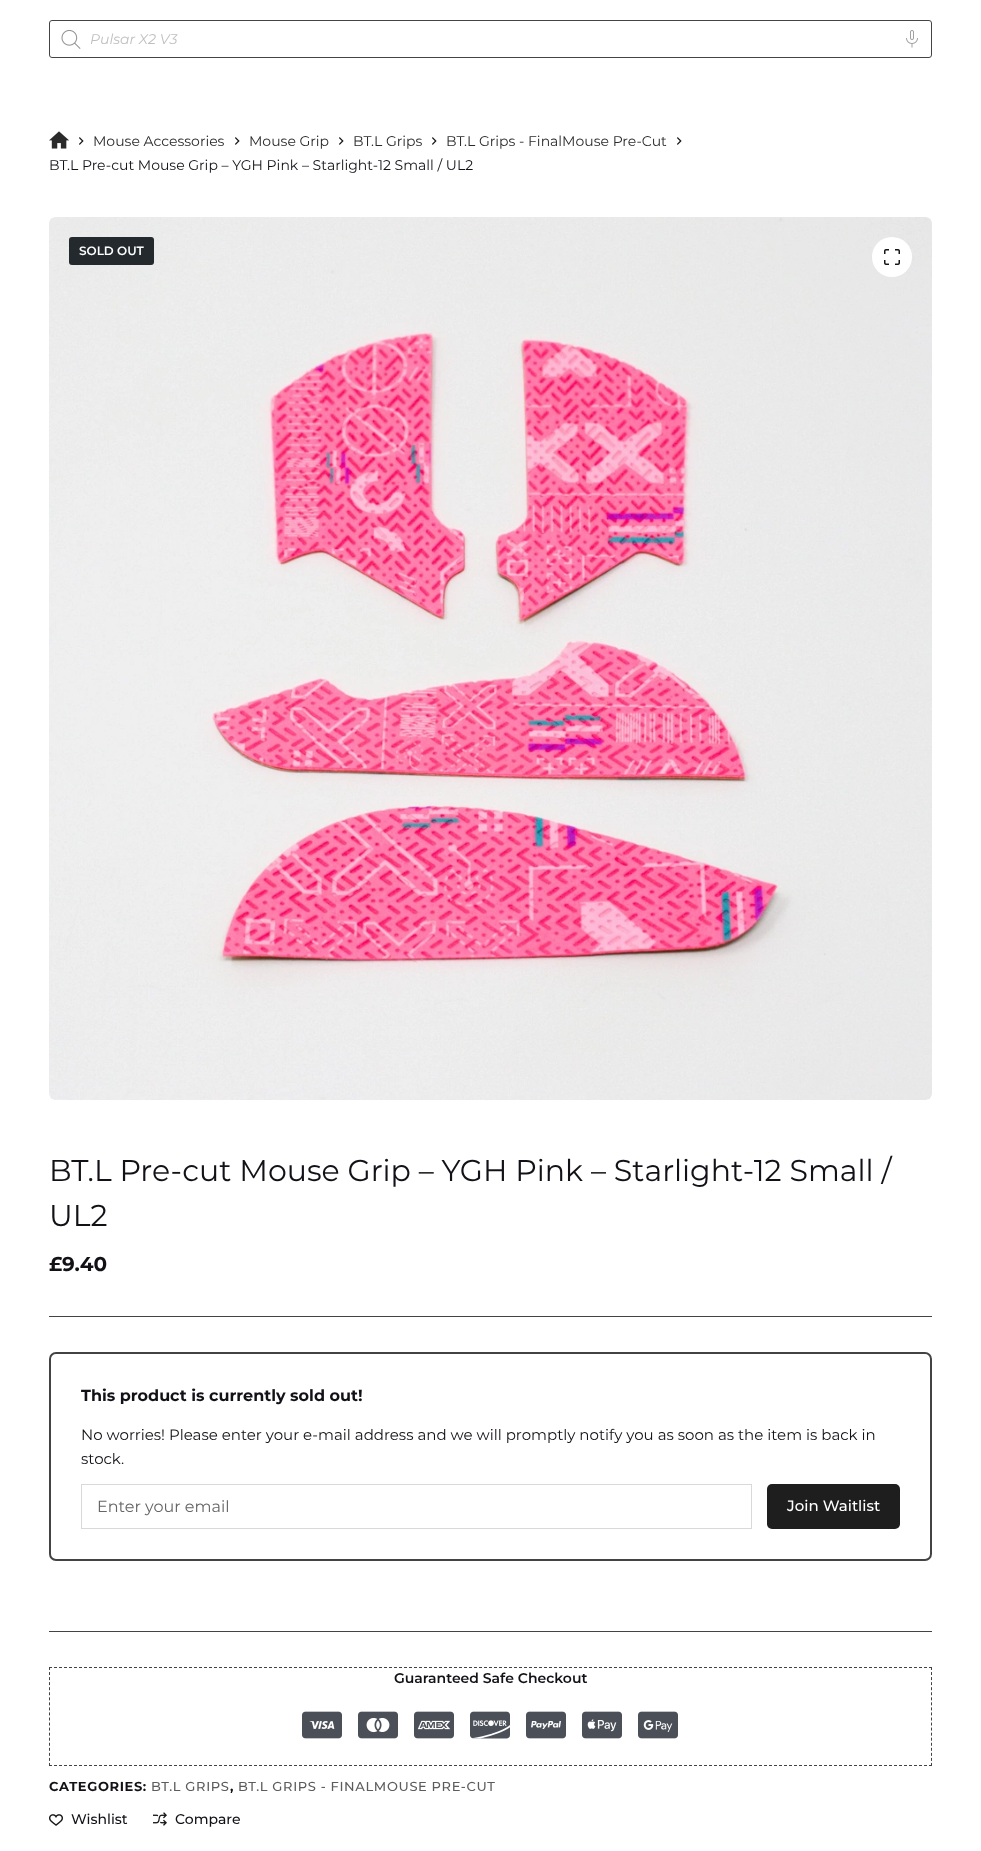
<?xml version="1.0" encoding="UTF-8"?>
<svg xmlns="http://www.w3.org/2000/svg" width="981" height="1851">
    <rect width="100%" height="100%" fill="#FFFFFF"/>
    <rect x="49.5" y="20.5" width="882" height="37" rx="2.5" fill="none" stroke="#444444"/>
    <image x="61" y="30" width="20" height="19" href="img_01.png"/>
    <text x="90" y="44" font-family="Montserrat" font-size="14" font-style="italic" fill="#BFBFBF">Pulsar X2 V3</text>
    <image x="906" y="30" width="12" height="18" href="img_02.png"/>
    <image x="49" y="131" width="20" height="18" href="img_03.png"/>
    <image x="79" y="137" width="5" height="8" href="img_04.png"/>
    <text x="93" y="146" font-family="Montserrat" font-size="14" fill="#2A2A2A">Mouse Accessories</text>
    <image x="235" y="137" width="5" height="8" href="img_04.png"/>
    <text x="249" y="146" font-family="Montserrat" font-size="14" fill="#2A2A2A">Mouse Grip</text>
    <image x="339" y="137" width="5" height="8" href="img_04.png"/>
    <text x="353" y="146" font-family="Montserrat" font-size="14" fill="#2A2A2A">BT.L Grips</text>
    <image x="432" y="137" width="5" height="8" href="img_04.png"/>
    <text x="446" y="146" font-family="Montserrat" font-size="14" fill="#2A2A2A">BT.L Grips - FinalMouse Pre-Cut</text>
    <image x="677" y="137" width="5" height="8" href="img_04.png"/>
    <text x="49" y="170" font-family="Montserrat" font-size="14" fill="#131117">BT.L Pre-cut Mouse Grip – YGH Pink – Starlight-12 Small / UL2</text>
    <image x="49" y="217" width="883" height="883" href="img_05.png"/>
    <rect x="69" y="237" width="85" height="28" rx="3" fill="#24292E"/>
    <text x="79" y="255" font-family="Montserrat" font-size="12" font-weight="600" fill="#FFFFFF">SOLD OUT</text>
    <circle cx="892" cy="257" r="20" fill="#FFFFFF"/>
    <image x="884" y="249" width="16" height="16" href="img_06.png"/>
    <text font-family="Montserrat" font-size="30" fill="#131117">
        <tspan x="49" y="1181">BT.L Pre-cut Mouse Grip – YGH Pink – Starlight-12 Small /</tspan>
        <tspan x="49" y="1226">UL2</tspan>
    </text>
    <text x="49" y="1271" font-family="Montserrat" font-size="20" font-weight="700" fill="#131117">£</text>
    <text x="62" y="1271" font-family="Montserrat" font-size="20" font-weight="700" fill="#131117">9.40</text>
    <rect x="49" y="1316" width="883" height="1" fill="#434343"/>
    <rect x="50" y="1353" width="881" height="207" rx="6" fill="none" stroke="#434343" stroke-width="2"/>
    <text x="81" y="1401" font-family="Montserrat" font-size="16" font-weight="700" fill="#131117">This product is currently sold out!</text>
    <text font-family="Montserrat" font-size="15" fill="#131117">
        <tspan x="81" y="1440">No worries! Please enter your e-mail address and we will promptly notify you as soon as the item is back in</tspan>
        <tspan x="81" y="1464">stock.</tspan>
    </text>
    <rect x="81.5" y="1484.5" width="670" height="44" fill="none" stroke="#D9D9D9"/>
    <text x="97" y="1512" font-family="Montserrat" font-size="16" fill="#666666">Enter your email</text>
    <rect x="767" y="1484" width="133" height="45" rx="5" fill="#1E1E1E"/>
    <text x="787" y="1511" font-family="Montserrat" font-size="15" font-weight="500" fill="#FFFFFF">Join Waitlist</text>
    <rect x="49" y="1631" width="883" height="1" fill="#434343"/>
    <path d="M 49 1667.5 H 932" fill="none" stroke="#434343" stroke-dasharray="3 2"/>
    <path d="M 931.5 1667 V 1766" fill="none" stroke="#434343" stroke-dasharray="3 2.05"/>
    <path d="M 49 1765.5 H 932" fill="none" stroke="#434343" stroke-dasharray="3 2"/>
    <path d="M 49.5 1667 V 1766" fill="none" stroke="#434343" stroke-dasharray="3 2.05"/>
    <text x="394" y="1683" font-family="Montserrat" font-size="14" font-weight="600" fill="#131117">Guaranteed Safe Checkout</text>
    <image x="302" y="1711" width="40" height="28" href="img_07.png"/>
    <image x="358" y="1711" width="40" height="28" href="img_08.png"/>
    <image x="414" y="1711" width="40" height="28" href="img_09.png"/>
    <image x="470" y="1711" width="40" height="28" href="img_10.png"/>
    <image x="526" y="1711" width="40" height="28" href="img_11.png"/>
    <image x="582" y="1711" width="40" height="28" href="img_12.png"/>
    <image x="638" y="1711" width="40" height="28" href="img_13.png"/>
    <text x="49" y="1791" font-family="Montserrat" font-size="13" font-weight="700" letter-spacing="0.65" fill="#131117">CATEGORIES:</text>
    <text x="151" y="1791" font-family="Montserrat" font-size="13" font-weight="500" letter-spacing="0.65" fill="#5C5C5C">BT.L GRIPS</text>
    <text x="230" y="1791" font-family="Montserrat" font-size="13" font-weight="700" letter-spacing="0.65" fill="#131117">,</text>
    <text x="238" y="1791" font-family="Montserrat" font-size="13" font-weight="500" letter-spacing="0.65" fill="#5C5C5C">BT.L GRIPS - FINALMOUSE PRE-CUT</text>
    <image x="49" y="1814" width="14" height="12" href="img_14.png"/>
    <text x="71" y="1824" font-family="Montserrat" font-size="14" font-weight="500" fill="#131117">Wishlist</text>
    <image x="153" y="1812" width="14" height="14" href="img_15.png"/>
    <text x="175" y="1824" font-family="Montserrat" font-size="14" font-weight="500" fill="#131117">Compare</text>
</svg>
